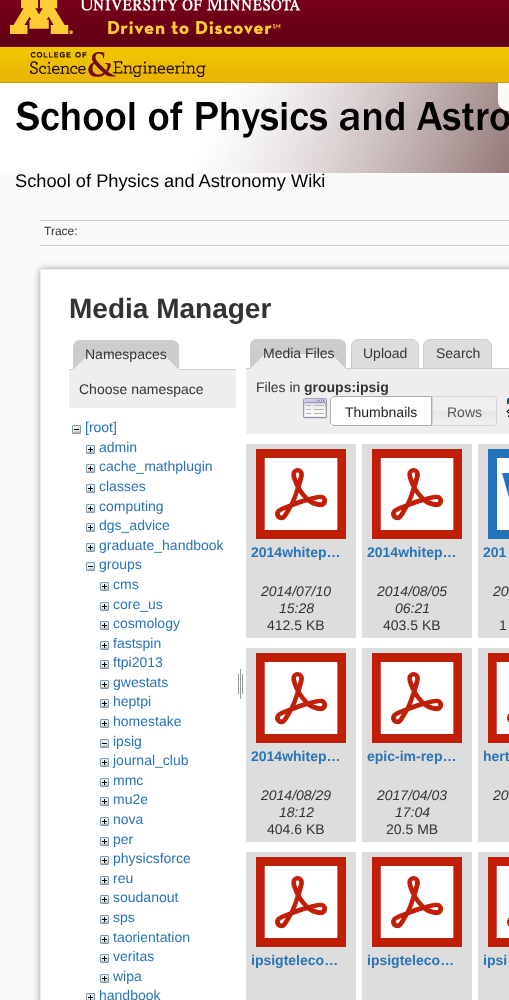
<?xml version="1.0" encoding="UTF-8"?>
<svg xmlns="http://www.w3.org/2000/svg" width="509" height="1000">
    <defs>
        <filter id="blur1" x="-50%" y="-200%" width="200%" height="500%"><feGaussianBlur stdDeviation="3.5"/></filter>
    </defs>
    <rect width="100%" height="100%" fill="#FBFAF9"/>
    <rect x="0" y="0" width="509" height="47" fill="#7A0019"/>
    <image x="0" y="4" width="509" height="42" href="img_01.png"/>
    <image x="10" y="0" width="290" height="34" href="img_02.png"/>
    <image x="0" y="47" width="509" height="35" href="img_03.png"/>
    <rect x="0" y="82" width="509" height="1" fill="#CB9901"/>
    <image x="30" y="52" width="176" height="25" href="img_04.png"/>
    <image x="0" y="83" width="509" height="90" href="img_05.png"/>
    <path d="M 498 83 H 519 V 111 H 508 C 502.5 111 498 106.5 498 101 Z" fill="#FBFAF9"/>
    <text x="15" y="187" font-family="Liberation Sans" font-size="18.25" fill="#000000">School of Physics and Astronomy Wiki</text>
    <rect x="40" y="220" width="469" height="1" fill="#CCCCCC"/>
    <rect x="40" y="246" width="469" height="1" fill="#FFFFFF"/>
    <rect x="40" y="221" width="469" height="1" fill="#FFFFFF"/>
    <rect x="40" y="245" width="469" height="1" fill="#CCCCCC"/>
    <text x="44" y="235" font-family="Liberation Sans" font-size="12" fill="#333333">Trace:</text>
    <rect x="40" y="269" width="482" height="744" rx="2" fill="#999999" filter="url(#blur1)"/>
    <rect x="40.5" y="269.5" width="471" height="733" rx="1.5" fill="#FFFFFF" stroke="#EEEEEE"/>
    <text x="69" y="318" font-family="Liberation Sans" font-size="28" font-weight="700" fill="#333333">Media Manager</text>
    <rect x="69" y="369" width="167" height="1" fill="#CCCCCC"/>
    <path d="M 80 340 H 172 C 176 340 179 343 179 347 V 370 H 73 V 347 C 73 343 76 340 80 340 Z" fill="#EEEEEE"/>
    <path d="M 80 340 H 173 L 177 342 L 164 355 H 88 L 75 342 C 76 341 78 340 80 340 Z" fill="#CCCCCC"/>
    <path d="M 177 342 L 164 355 L 179 370 V 347 C 179 345 178 343 177 342 Z" fill="#CCCCCC"/>
    <path d="M 179 370 L 164 355 H 88 L 73 370 Z" fill="#EEEEEE"/>
    <path d="M 73 370 V 347 C 73 345 74 343 75 342 L 88 355 Z" fill="#CCCCCC"/>
    <text x="85" y="359" font-family="Liberation Sans" font-size="14" fill="#333333">Namespaces</text>
    <rect x="69" y="370" width="167" height="38" fill="#EEEEEE"/>
    <text x="79" y="394" font-family="Liberation Sans" font-size="14" fill="#333333">Choose namespace</text>
    <image x="72" y="425" width="9" height="9" href="img_06.png"/>
    <text x="85" y="432" font-family="Liberation Sans" font-size="14" fill="#2B73B7">[root]</text>
    <image x="86" y="445" width="9" height="9" href="img_07.png"/>
    <text x="99" y="452" font-family="Liberation Sans" font-size="14" fill="#2B73B7">admin</text>
    <image x="86" y="464" width="9" height="9" href="img_07.png"/>
    <text x="99" y="471" font-family="Liberation Sans" font-size="14" fill="#2B73B7">cache_mathplugin</text>
    <image x="86" y="484" width="9" height="9" href="img_07.png"/>
    <text x="99" y="491" font-family="Liberation Sans" font-size="14" fill="#2B73B7">classes</text>
    <image x="86" y="504" width="9" height="9" href="img_07.png"/>
    <text x="99" y="511" font-family="Liberation Sans" font-size="14" fill="#2B73B7">computing</text>
    <image x="86" y="523" width="9" height="9" href="img_07.png"/>
    <text x="99" y="530" font-family="Liberation Sans" font-size="14" fill="#2B73B7">dgs_advice</text>
    <image x="86" y="543" width="9" height="9" href="img_07.png"/>
    <text x="99" y="550" font-family="Liberation Sans" font-size="14" fill="#2B73B7">graduate_handbook</text>
    <image x="86" y="562" width="9" height="9" href="img_06.png"/>
    <text x="99" y="569" font-family="Liberation Sans" font-size="14" fill="#2B73B7">groups</text>
    <image x="100" y="582" width="9" height="9" href="img_07.png"/>
    <text x="113" y="589" font-family="Liberation Sans" font-size="14" fill="#2B73B7">cms</text>
    <image x="100" y="602" width="9" height="9" href="img_07.png"/>
    <text x="113" y="609" font-family="Liberation Sans" font-size="14" fill="#2B73B7">core_us</text>
    <image x="100" y="621" width="9" height="9" href="img_07.png"/>
    <text x="113" y="628" font-family="Liberation Sans" font-size="14" fill="#2B73B7">cosmology</text>
    <image x="100" y="641" width="9" height="9" href="img_07.png"/>
    <text x="113" y="648" font-family="Liberation Sans" font-size="14" fill="#2B73B7">fastspin</text>
    <image x="100" y="660" width="9" height="9" href="img_07.png"/>
    <text x="113" y="667" font-family="Liberation Sans" font-size="14" fill="#2B73B7">ftpi2013</text>
    <image x="100" y="680" width="9" height="9" href="img_07.png"/>
    <text x="113" y="687" font-family="Liberation Sans" font-size="14" fill="#2B73B7">gwestats</text>
    <image x="100" y="699" width="9" height="9" href="img_07.png"/>
    <text x="113" y="706" font-family="Liberation Sans" font-size="14" fill="#2B73B7">heptpi</text>
    <image x="100" y="719" width="9" height="9" href="img_07.png"/>
    <text x="113" y="726" font-family="Liberation Sans" font-size="14" fill="#2B73B7">homestake</text>
    <image x="100" y="739" width="9" height="9" href="img_06.png"/>
    <text x="113" y="746" font-family="Liberation Sans" font-size="14" fill="#2B73B7">ipsig</text>
    <image x="100" y="758" width="9" height="9" href="img_07.png"/>
    <text x="113" y="765" font-family="Liberation Sans" font-size="14" fill="#2B73B7">journal_club</text>
    <image x="100" y="778" width="9" height="9" href="img_07.png"/>
    <text x="113" y="785" font-family="Liberation Sans" font-size="14" fill="#2B73B7">mmc</text>
    <image x="100" y="797" width="9" height="9" href="img_07.png"/>
    <text x="113" y="804" font-family="Liberation Sans" font-size="14" fill="#2B73B7">mu2e</text>
    <image x="100" y="817" width="9" height="9" href="img_07.png"/>
    <text x="113" y="824" font-family="Liberation Sans" font-size="14" fill="#2B73B7">nova</text>
    <image x="100" y="837" width="9" height="9" href="img_07.png"/>
    <text x="113" y="844" font-family="Liberation Sans" font-size="14" fill="#2B73B7">per</text>
    <image x="100" y="856" width="9" height="9" href="img_07.png"/>
    <text x="113" y="863" font-family="Liberation Sans" font-size="14" fill="#2B73B7">physicsforce</text>
    <image x="100" y="876" width="9" height="9" href="img_07.png"/>
    <text x="113" y="883" font-family="Liberation Sans" font-size="14" fill="#2B73B7">reu</text>
    <image x="100" y="895" width="9" height="9" href="img_07.png"/>
    <text x="113" y="902" font-family="Liberation Sans" font-size="14" fill="#2B73B7">soudanout</text>
    <image x="100" y="915" width="9" height="9" href="img_07.png"/>
    <text x="113" y="922" font-family="Liberation Sans" font-size="14" fill="#2B73B7">sps</text>
    <image x="100" y="935" width="9" height="9" href="img_07.png"/>
    <text x="113" y="942" font-family="Liberation Sans" font-size="14" fill="#2B73B7">taorientation</text>
    <image x="100" y="954" width="9" height="9" href="img_07.png"/>
    <text x="113" y="961" font-family="Liberation Sans" font-size="14" fill="#2B73B7">veritas</text>
    <image x="100" y="974" width="9" height="9" href="img_07.png"/>
    <text x="113" y="981" font-family="Liberation Sans" font-size="14" fill="#2B73B7">wipa</text>
    <image x="86" y="993" width="9" height="7" href="img_08.png"/>
    <text x="99" y="1000" font-family="Liberation Sans" font-size="14" fill="#2B73B7">handbook</text>
    <image x="238" y="668" width="5" height="31" href="img_09.png"/>
    <path d="M 257 339 H 339 C 341 339 343 340 344 341 L 331 354 H 265 L 252 341 C 253 340 255 339 257 339 Z" fill="#CCCCCC"/>
    <path d="M 358 339.5 H 412 C 415.5 339.5 418.5 342.5 418.5 346 V 368.5 H 351.5 V 346 C 351.5 342.5 354.5 339.5 358 339.5 Z" fill="#DDDDDD" stroke="#CCCCCC"/>
    <path d="M 430 339.5 H 485 C 488.5 339.5 491.5 342.5 491.5 346 V 368.5 H 423.5 V 346 C 423.5 342.5 426.5 339.5 430 339.5 Z" fill="#DDDDDD" stroke="#CCCCCC"/>
    <rect x="246" y="368" width="263" height="1" fill="#CCCCCC"/>
    <path d="M 344 341 L 331 354 L 346 369 V 346 C 346 344 345 342 344 341 Z" fill="#CCCCCC"/>
    <path d="M 346 369 L 331 354 H 265 L 250 369 Z" fill="#EEEEEE"/>
    <path d="M 250 369 V 346 C 250 344 251 342 252 341 L 265 354 Z" fill="#CCCCCC"/>
    <text x="263" y="358" font-family="Liberation Sans" font-size="14" fill="#333333">Media Files</text>
    <text x="363" y="358" font-family="Liberation Sans" font-size="14" fill="#333333">Upload</text>
    <text x="436" y="358" font-family="Liberation Sans" font-size="14" fill="#333333">Search</text>
    <rect x="246" y="369" width="263" height="65" fill="#EEEEEE"/>
    <text x="256" y="392" font-family="Liberation Sans" font-size="14" fill="#333333">Files in</text>
    <text x="304" y="392" font-family="Liberation Sans" font-size="14" font-weight="700" fill="#333333">groups:ipsig</text>
    <image x="303" y="398" width="24" height="21" href="img_10.png"/>
    <rect x="330" y="396" width="101" height="30" fill="#FFFFFF"/>
    <path d="M 334 396.5 H 431.5 V 425.5 H 334 C 332 425.5 330.5 424 330.5 422 V 400 C 330.5 398 332 396.5 334 396.5 Z" fill="none" stroke="#AAAAAA"/>
    <text x="345" y="417" font-family="Liberation Sans" font-size="14" fill="#212121">Thumbnails</text>
    <image x="433" y="396" width="64" height="30" href="img_11.png"/>
    <path d="M 432.5 396.5 H 493 C 495 396.5 496.5 398 496.5 400 V 422 C 496.5 424 495 425.5 493 425.5 H 432.5 Z" fill="none" stroke="#D3D3D3"/>
    <text x="447" y="417" font-family="Liberation Sans" font-size="14" fill="#555555">Rows</text>
    <image x="506" y="398" width="3" height="19" href="img_12.png"/>
    <rect x="246" y="444" width="110" height="194" fill="#DDDDDD"/>
    <image x="256" y="449" width="90" height="90" href="img_13.png"/>
    <text x="251" y="557" font-family="Liberation Sans" font-size="14" font-weight="700" fill="#2B73B7">2014whitep…</text>
    <text x="261" y="596" font-family="Liberation Sans" font-size="14" font-style="italic" fill="#333333">2014/07/10</text>
    <text x="279" y="613" font-family="Liberation Sans" font-size="14" font-style="italic" fill="#333333">15:28</text>
    <text x="267" y="630" font-family="Liberation Sans" font-size="14" fill="#333333">412.5 KB</text>
    <rect x="362" y="444" width="110" height="194" fill="#DDDDDD"/>
    <image x="372" y="449" width="90" height="90" href="img_13.png"/>
    <text x="367" y="557" font-family="Liberation Sans" font-size="14" font-weight="700" fill="#2B73B7">2014whitep…</text>
    <text x="377" y="596" font-family="Liberation Sans" font-size="14" font-style="italic" fill="#333333">2014/08/05</text>
    <text x="395" y="613" font-family="Liberation Sans" font-size="14" font-style="italic" fill="#333333">06:21</text>
    <text x="383" y="630" font-family="Liberation Sans" font-size="14" fill="#333333">403.5 KB</text>
    <rect x="478" y="444" width="31" height="194" fill="#DDDDDD"/>
    <rect x="497" y="458" width="12" height="72" fill="#FFFFFF"/>
    <path d="M 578 539 H 488 V 449 H 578 Z M 497 530 H 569 V 458 H 497" fill="#2372BA"/>
    <path d="M 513 473 L 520 500 L 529 473 H 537 L 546 500 L 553 473 H 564 L 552 515 H 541 L 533 491 L 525 515 H 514 L 502 473 Z" fill="#2372BA"/>
    <text x="483" y="557" font-family="Liberation Sans" font-size="14" font-weight="700" fill="#2B73B7">201</text>
    <text x="493" y="596" font-family="Liberation Sans" font-size="14" font-style="italic" fill="#333333">20</text>
    <text x="499" y="630" font-family="Liberation Sans" font-size="14" fill="#333333">1</text>
    <rect x="246" y="648" width="110" height="194" fill="#DDDDDD"/>
    <image x="256" y="653" width="90" height="90" href="img_13.png"/>
    <text x="251" y="761" font-family="Liberation Sans" font-size="14" font-weight="700" fill="#2B73B7">2014whitep…</text>
    <text x="261" y="800" font-family="Liberation Sans" font-size="14" font-style="italic" fill="#333333">2014/08/29</text>
    <text x="279" y="817" font-family="Liberation Sans" font-size="14" font-style="italic" fill="#333333">18:12</text>
    <text x="267" y="834" font-family="Liberation Sans" font-size="14" fill="#333333">404.6 KB</text>
    <rect x="362" y="648" width="110" height="194" fill="#DDDDDD"/>
    <image x="372" y="653" width="90" height="90" href="img_13.png"/>
    <text x="367" y="761" font-family="Liberation Sans" font-size="14" font-weight="700" fill="#2B73B7">epic-im-rep…</text>
    <text x="377" y="800" font-family="Liberation Sans" font-size="14" font-style="italic" fill="#333333">2017/04/03</text>
    <text x="395" y="817" font-family="Liberation Sans" font-size="14" font-style="italic" fill="#333333">17:04</text>
    <text x="386" y="834" font-family="Liberation Sans" font-size="14" fill="#333333">20.5 MB</text>
    <rect x="478" y="648" width="31" height="194" fill="#DDDDDD"/>
    <image x="488" y="653" width="21" height="90" href="img_14.png"/>
    <text x="483" y="761" font-family="Liberation Sans" font-size="14" font-weight="700" fill="#2B73B7">hert</text>
    <text x="493" y="800" font-family="Liberation Sans" font-size="14" font-style="italic" fill="#333333">20</text>
    <rect x="246" y="852" width="110" height="148" fill="#DDDDDD"/>
    <image x="256" y="857" width="90" height="90" href="img_13.png"/>
    <text x="251" y="965" font-family="Liberation Sans" font-size="14" font-weight="700" fill="#2B73B7">ipsigteleco…</text>
    <rect x="362" y="852" width="110" height="148" fill="#DDDDDD"/>
    <image x="372" y="857" width="90" height="90" href="img_13.png"/>
    <text x="367" y="965" font-family="Liberation Sans" font-size="14" font-weight="700" fill="#2B73B7">ipsigteleco…</text>
    <rect x="478" y="852" width="31" height="148" fill="#DDDDDD"/>
    <image x="488" y="857" width="21" height="90" href="img_14.png"/>
    <text x="483" y="965" font-family="Liberation Sans" font-size="14" font-weight="700" fill="#2B73B7">ipsi</text>
</svg>
